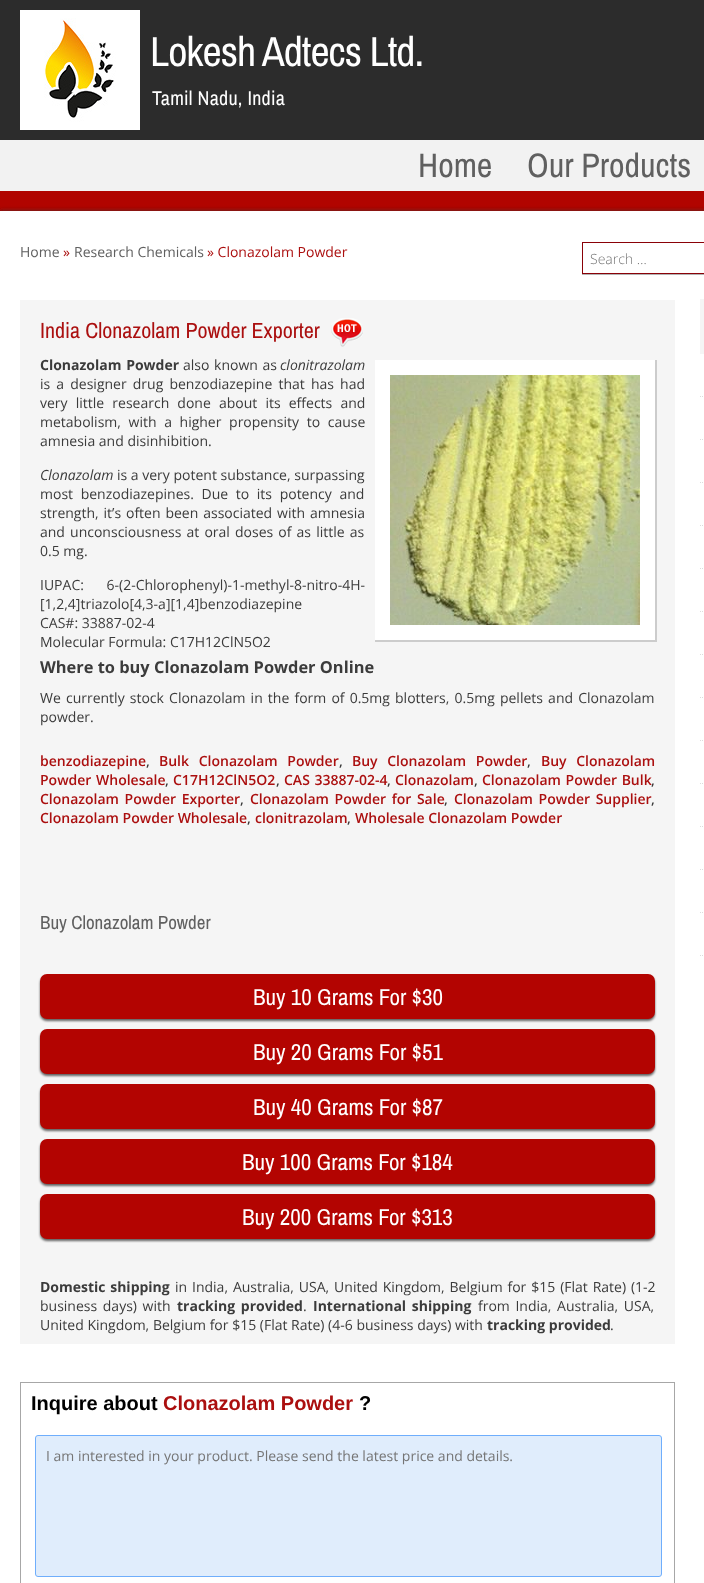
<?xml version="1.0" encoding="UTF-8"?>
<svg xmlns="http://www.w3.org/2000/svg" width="704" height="1583">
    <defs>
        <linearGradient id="g1" gradientUnits="userSpaceOnUse" x1="352" y1="0" x2="352" y2="406"><stop offset="0" stop-color="#A30400"/><stop offset="0.96" stop-color="#BE0400"/></linearGradient>
        <filter id="blur1" x="-50%" y="-200%" width="200%" height="500%"><feGaussianBlur stdDeviation="2.5"/></filter>
        <filter id="blur2" x="-50%" y="-200%" width="200%" height="500%"><feGaussianBlur stdDeviation="0.5"/></filter>
        <filter id="blur3" x="-50%" y="-200%" width="200%" height="500%"><feGaussianBlur stdDeviation="1"/></filter>
        <clipPath id="clip1"><path d="M 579 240 H 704 V 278 H 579 Z M 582 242 H 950 V 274 H 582 Z" clip-rule="evenodd"/></clipPath>
    </defs>
    <rect width="100%" height="100%" fill="#FFFFFF"/>
    <rect x="0" y="0" width="704" height="140" fill="#2C2C2C"/>
    <image x="20" y="10" width="120" height="120" href="img_01.png"/>
    <text x="150" y="66" font-family="Archivo Narrow" font-size="42" letter-spacing="-1" fill="#FFFFFF">Lokesh Adtecs Ltd.</text>
    <text x="152" y="105" font-family="Archivo Narrow" font-size="20" letter-spacing="0.25" fill="#FFFFFF">Tamil Nadu, India</text>
    <rect x="0" y="140" width="704" height="51" fill="#F2F2F2"/>
    <text x="418" y="177" font-family="Archivo Narrow" font-size="34" fill="#606060">Home</text>
    <text x="527" y="177" font-family="Archivo Narrow" font-size="34" fill="#606060">Our Products</text>
    <rect x="0" y="191" width="704" height="20" fill="url(#g1)"/>
    <rect x="0" y="211" width="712" height="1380" fill="#323232" fill-opacity="0.75" filter="url(#blur1)"/>
    <rect x="0" y="211" width="704" height="1372" fill="#FFFFFF"/>
    <text x="20" y="257" font-family="Open Sans" font-size="14" fill="#606060">Home</text>
    <text x="63" y="257" font-family="Open Sans" font-size="14" fill="#AB0F0F">»</text>
    <text x="74" y="257" font-family="Open Sans" font-size="14" fill="#606060">Research Chemicals</text>
    <text x="207" y="257" font-family="Open Sans" font-size="14" fill="#AB0F0F">» Clonazolam Powder</text>
    <rect x="20" y="300" width="655" height="1044" fill="#F5F5F5"/>
    <text x="40" y="338" font-family="Archivo Narrow" font-size="22" fill="#AB0F0F">India Clonazolam Powder Exporter</text>
    <image x="331" y="318" width="32" height="29" href="img_02.png"/>
    <text x="40" y="370" word-spacing="1" font-family="Open Sans" font-size="14" font-weight="700" fill="#3B3B3B">Clonazolam Powder</text>
    <text x="183" y="370" word-spacing="1" font-family="Open Sans" font-size="14" fill="#3B3B3B">also known as</text>
    <text x="280" y="370" font-family="Open Sans" font-size="14" font-style="italic" fill="#3B3B3B">clonitrazolam</text>
    <text font-family="Open Sans" font-size="14" fill="#3B3B3B">
        <tspan x="40" y="389" word-spacing="2.5">is a designer drug benzodiazepine that has had</tspan>
        <tspan x="40" y="408" word-spacing="4.5">very little research done about its effects and</tspan>
        <tspan x="40" y="427" word-spacing="4">metabolism, with a higher propensity to cause</tspan>
        <tspan x="40" y="446">amnesia and disinhibition.</tspan>
    </text>
    <rect x="375" y="360" width="282" height="282" fill="#CCCCCC" filter="url(#blur2)"/>
    <rect x="382.5" y="367.5" width="265" height="265" fill="none" stroke="#FFFFFF" stroke-width="15"/>
    <image x="390" y="375" width="250" height="250" href="img_03.png"/>
    <text x="40" y="480" font-family="Open Sans" font-size="14" font-style="italic" fill="#3B3B3B">Clonazolam</text>
    <text x="117" y="480" font-family="Open Sans" font-size="14" fill="#3B3B3B">is a very potent substance, surpassing</text>
    <text font-family="Open Sans" font-size="14" fill="#3B3B3B">
        <tspan x="40" y="499" word-spacing="4">most benzodiazepines. Due to its potency and</tspan>
        <tspan x="40" y="518" word-spacing="1.25">strength, it’s often been associated with amnesia</tspan>
        <tspan x="40" y="537" word-spacing="1.5">and unconsciousness at oral doses of as little as</tspan>
        <tspan x="40" y="556">0.5 mg.</tspan>
    </text>
    <text font-family="Open Sans" font-size="14" fill="#3B3B3B">
        <tspan x="40" y="590" word-spacing="19">IUPAC: 6-(2-Chlorophenyl)-1-methyl-8-nitro-4H-</tspan>
        <tspan x="40" y="609">[1,2,4]triazolo[4,3-a][1,4]benzodiazepine</tspan>
        <tspan x="40" y="628">CAS#: 33887-02-4</tspan>
        <tspan x="40" y="647">Molecular Formula: C17H12ClN5O2</tspan>
    </text>
    <text x="40" y="673" font-family="Open Sans" font-size="16.4" font-weight="700" fill="#3B3B3B">Where to buy Clonazolam Powder Online</text>
    <text font-family="Open Sans" font-size="14" fill="#3B3B3B">
        <tspan x="40" y="703" word-spacing="1.5">We currently stock Clonazolam in the form of 0.5mg blotters, 0.5mg pellets and Clonazolam</tspan>
        <tspan x="40" y="722">powder.</tspan>
    </text>
    <text x="40" y="766" font-family="Open Sans" font-size="14" font-weight="600" fill="#AB0F0F">benzodiazepine</text>
    <text x="146" y="766" font-family="Open Sans" font-size="14" font-weight="600" fill="#3B3B3B">,</text>
    <text x="159" y="766" word-spacing="6" font-family="Open Sans" font-size="14" font-weight="600" fill="#AB0F0F">Bulk Clonazolam Powder</text>
    <text x="339" y="766" font-family="Open Sans" font-size="14" font-weight="600" fill="#3B3B3B">,</text>
    <text x="352" y="766" word-spacing="6" font-family="Open Sans" font-size="14" font-weight="600" fill="#AB0F0F">Buy Clonazolam Powder</text>
    <text x="527" y="766" font-family="Open Sans" font-size="14" font-weight="600" fill="#3B3B3B">,</text>
    <text x="541" y="766" word-spacing="6" font-family="Open Sans" font-size="14" font-weight="600" fill="#AB0F0F">Buy Clonazolam</text>
    <text x="40" y="785" word-spacing="1" font-family="Open Sans" font-size="14" font-weight="600" fill="#AB0F0F">Powder Wholesale</text>
    <text x="165" y="785" font-family="Open Sans" font-size="14" font-weight="600" fill="#3B3B3B">,</text>
    <text x="173" y="785" font-family="Open Sans" font-size="14" font-weight="600" fill="#AB0F0F">C17H12ClN5O2</text>
    <text x="276" y="785" font-family="Open Sans" font-size="14" font-weight="600" fill="#3B3B3B">,</text>
    <text x="284" y="785" word-spacing="1" font-family="Open Sans" font-size="14" font-weight="600" fill="#AB0F0F">CAS 33887-02-4</text>
    <text x="387" y="785" font-family="Open Sans" font-size="14" font-weight="600" fill="#3B3B3B">,</text>
    <text x="395" y="785" font-family="Open Sans" font-size="14" font-weight="600" fill="#AB0F0F">Clonazolam</text>
    <text x="474" y="785" font-family="Open Sans" font-size="14" font-weight="600" fill="#3B3B3B">,</text>
    <text x="482" y="785" word-spacing="1" font-family="Open Sans" font-size="14" font-weight="600" fill="#AB0F0F">Clonazolam Powder Bulk</text>
    <text x="651" y="785" font-family="Open Sans" font-size="14" font-weight="600" fill="#3B3B3B">,</text>
    <text x="40" y="804" word-spacing="2" font-family="Open Sans" font-size="14" font-weight="600" fill="#AB0F0F">Clonazolam Powder Exporter</text>
    <text x="240" y="804" font-family="Open Sans" font-size="14" font-weight="600" fill="#3B3B3B">,</text>
    <text x="250" y="804" word-spacing="2" font-family="Open Sans" font-size="14" font-weight="600" fill="#AB0F0F">Clonazolam Powder for Sale</text>
    <text x="444" y="804" font-family="Open Sans" font-size="14" font-weight="600" fill="#3B3B3B">,</text>
    <text x="454" y="804" word-spacing="2" font-family="Open Sans" font-size="14" font-weight="600" fill="#AB0F0F">Clonazolam Powder Supplier</text>
    <text x="651" y="804" font-family="Open Sans" font-size="14" font-weight="600" fill="#3B3B3B">,</text>
    <text x="40" y="823" font-family="Open Sans" font-size="14" font-weight="600" fill="#AB0F0F">Clonazolam Powder Wholesale</text>
    <text x="247" y="823" font-family="Open Sans" font-size="14" font-weight="600" fill="#3B3B3B">,</text>
    <text x="255" y="823" font-family="Open Sans" font-size="14" font-weight="600" fill="#AB0F0F">clonitrazolam</text>
    <text x="347" y="823" font-family="Open Sans" font-size="14" font-weight="600" fill="#3B3B3B">,</text>
    <text x="355" y="823" font-family="Open Sans" font-size="14" font-weight="600" fill="#AB0F0F">Wholesale Clonazolam Powder</text>
    <text x="40" y="929" font-family="Archivo Narrow" font-size="19" fill="#606060">Buy Clonazolam Powder</text>
    <rect x="40" y="976" width="615" height="45" rx="7" fill="#000000" fill-opacity="0.6" filter="url(#blur3)"/>
    <rect x="40" y="974" width="615" height="45" rx="7" fill="#B30401"/>
    <text x="253" y="1005" font-family="Archivo Narrow" font-size="23" fill="#FFFFFF">Buy 10 Grams For $30</text>
    <rect x="40" y="1031" width="615" height="45" rx="7" fill="#000000" fill-opacity="0.6" filter="url(#blur3)"/>
    <rect x="40" y="1029" width="615" height="45" rx="7" fill="#B30401"/>
    <text x="253" y="1060" font-family="Archivo Narrow" font-size="23" fill="#FFFFFF">Buy 20 Grams For $51</text>
    <rect x="40" y="1086" width="615" height="45" rx="7" fill="#000000" fill-opacity="0.6" filter="url(#blur3)"/>
    <rect x="40" y="1084" width="615" height="45" rx="7" fill="#B30401"/>
    <text x="253" y="1115" font-family="Archivo Narrow" font-size="23" fill="#FFFFFF">Buy 40 Grams For $87</text>
    <rect x="40" y="1141" width="615" height="45" rx="7" fill="#000000" fill-opacity="0.6" filter="url(#blur3)"/>
    <rect x="40" y="1139" width="615" height="45" rx="7" fill="#B30401"/>
    <text x="242" y="1170" font-family="Archivo Narrow" font-size="23" fill="#FFFFFF">Buy 100 Grams For $184</text>
    <rect x="40" y="1196" width="615" height="45" rx="7" fill="#000000" fill-opacity="0.6" filter="url(#blur3)"/>
    <rect x="40" y="1194" width="615" height="45" rx="7" fill="#B30401"/>
    <text x="242" y="1225" font-family="Archivo Narrow" font-size="23" fill="#FFFFFF">Buy 200 Grams For $313</text>
    <text x="40" y="1292" word-spacing="1" font-family="Open Sans" font-size="14" font-weight="700" fill="#3B3B3B">Domestic shipping</text>
    <text x="175" y="1292" word-spacing="1.25" font-family="Open Sans" font-size="14" fill="#3B3B3B">in India, Australia, USA, United Kingdom, Belgium for $15 (Flat Rate) (1-2</text>
    <text x="40" y="1311" word-spacing="2" font-family="Open Sans" font-size="14" fill="#3B3B3B">business days) with</text>
    <text x="177" y="1311" word-spacing="2" font-family="Open Sans" font-size="14" font-weight="700" fill="#3B3B3B">tracking provided</text>
    <text x="303" y="1311" font-family="Open Sans" font-size="14" fill="#3B3B3B">.</text>
    <text x="313" y="1311" word-spacing="2" font-family="Open Sans" font-size="14" font-weight="700" fill="#3B3B3B">International shipping</text>
    <text x="478" y="1311" word-spacing="2" font-family="Open Sans" font-size="14" fill="#3B3B3B">from India, Australia, USA,</text>
    <text x="40" y="1330" font-family="Open Sans" font-size="14" fill="#3B3B3B">United Kingdom, Belgium for $15 (Flat Rate) (4-6 business days) with</text>
    <text x="487" y="1330" font-family="Open Sans" font-size="14" font-weight="700" fill="#3B3B3B">tracking provided</text>
    <text x="610" y="1330" font-family="Open Sans" font-size="14" fill="#3B3B3B">.</text>
    <rect x="20.5" y="1382.5" width="654" height="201" fill="none" stroke="#A7A7A7"/>
    <text x="31" y="1410" font-family="Liberation Sans" font-size="20" font-weight="700" fill="#000000">Inquire about</text>
    <text x="163" y="1410" font-family="Liberation Sans" font-size="20" font-weight="700" fill="#AB0F0F">Clonazolam Powder</text>
    <text x="359" y="1410" font-family="Liberation Sans" font-size="20" font-weight="700" fill="#000000">?</text>
    <rect x="35.5" y="1435.5" width="626" height="141" rx="2.5" fill="#E0EDFC" stroke="#6FAEFC"/>
    <text x="46" y="1461" font-family="Open Sans" font-size="14" fill="#757575">I am interested in your product. Please send the latest price and details.</text>
    <g clip-path="url(#clip1)">
        <rect x="582" y="243" width="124" height="32" fill="#000000" fill-opacity="0.3" filter="url(#blur2)"/>
    </g>
    <rect x="582.5" y="242.5" width="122" height="31" fill="none" stroke="#8A0108"/>
    <text x="590" y="264" font-family="Open Sans" font-size="14" font-weight="300" fill="#757575">Search …</text>
    <rect x="700" y="299" width="4" height="55" fill="#F5F5F5"/>
    <path d="M 700 396.5 H 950 M 700 439.5 H 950" fill="none" stroke="#DDDDDD" stroke-dasharray="1 1"/>
    <path d="M 700 482.5 H 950 M 700 525.5 H 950" fill="none" stroke="#DDDDDD" stroke-dasharray="1 1"/>
    <path d="M 700 568.5 H 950 M 700 611.5 H 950" fill="none" stroke="#DDDDDD" stroke-dasharray="1 1"/>
    <path d="M 700 654.5 H 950 M 700 697.5 H 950" fill="none" stroke="#DDDDDD" stroke-dasharray="1 1"/>
    <path d="M 700 740.5 H 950 M 700 783.5 H 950" fill="none" stroke="#DDDDDD" stroke-dasharray="1 1"/>
    <path d="M 700 826.5 H 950 M 700 869.5 H 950" fill="none" stroke="#DDDDDD" stroke-dasharray="1 1"/>
    <path d="M 700 912.5 H 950 M 700 955.5 H 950" fill="none" stroke="#DDDDDD" stroke-dasharray="1 1"/>
</svg>
